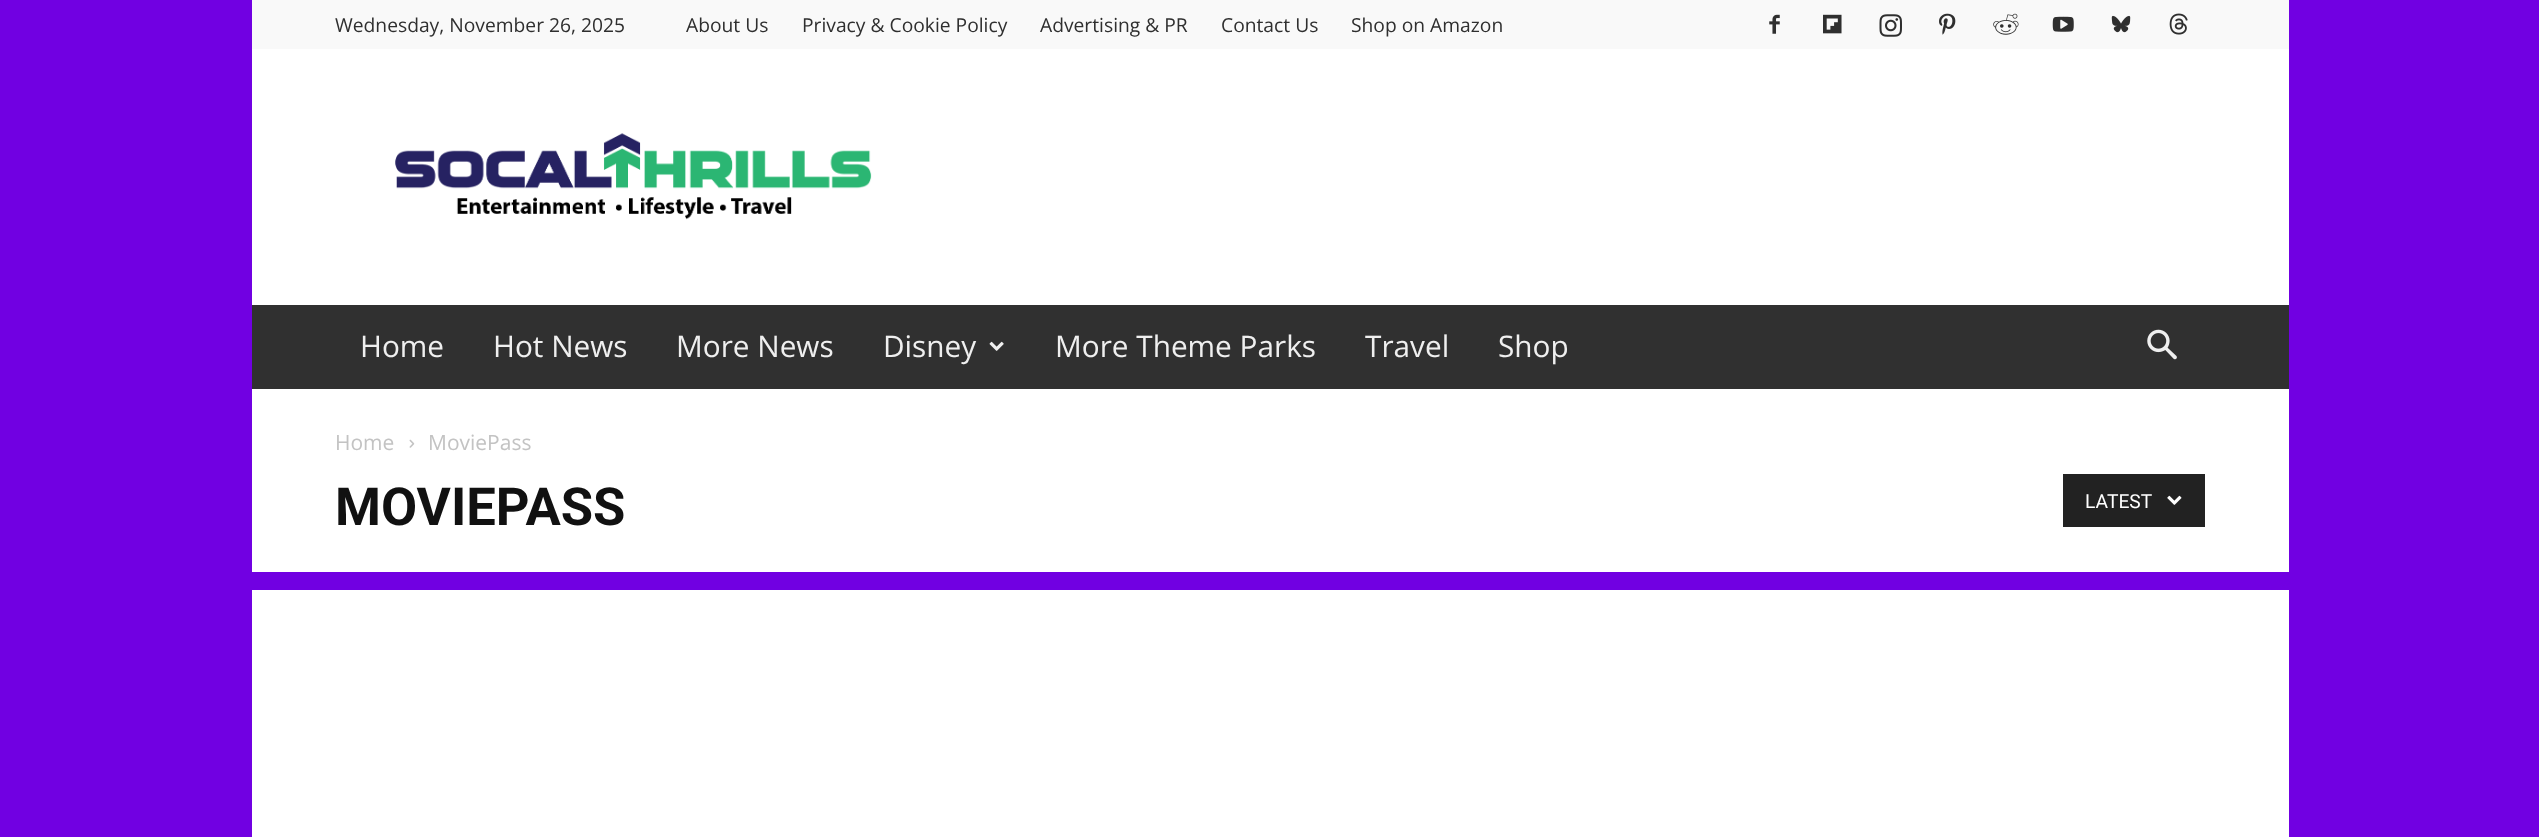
<?xml version="1.0" encoding="UTF-8"?>
<svg xmlns="http://www.w3.org/2000/svg" width="2539" height="837">
    <rect width="100%" height="100%" fill="#7100E2"/>
    <rect x="252" y="0" width="2037" height="49" fill="#F9F9F9"/>
    <text x="335" y="32" font-family="Open Sans" font-size="19.25" fill="#2F2F2F">Wednesday, November 26, 2025</text>
    <text x="686" y="32" font-family="Open Sans" font-size="19.25" fill="#2F2F2F">About Us</text>
    <text x="802" y="32" font-family="Open Sans" font-size="19.25" fill="#2F2F2F">Privacy &amp; Cookie Policy</text>
    <text x="1040" y="32" font-family="Open Sans" font-size="19.25" fill="#2F2F2F">Advertising &amp; PR</text>
    <text x="1221" y="32" font-family="Open Sans" font-size="19.25" fill="#2F2F2F">Contact Us</text>
    <text x="1351" y="32" font-family="Open Sans" font-size="19.25" fill="#2F2F2F">Shop on Amazon</text>
    <image x="1769" y="14" width="11" height="20" href="img_01.png"/>
    <image x="1823" y="14" width="19" height="20" href="img_02.png"/>
    <image x="1879" y="14" width="23" height="23" href="img_03.png"/>
    <image x="1939" y="13" width="17" height="22" href="img_04.png"/>
    <image x="1993" y="13" width="26" height="22" href="img_05.png"/>
    <image x="2052" y="16" width="22" height="16" href="img_06.png"/>
    <image x="2111" y="15" width="20" height="18" href="img_07.png"/>
    <image x="2169" y="13" width="19" height="22" href="img_08.png"/>
    <rect x="252" y="49" width="2037" height="256" fill="#FFFFFF"/>
    <image x="395" y="133" width="477" height="87" href="img_09.png"/>
    <rect x="252" y="305" width="2037" height="84" fill="#303030"/>
    <text x="360" y="357" font-family="Open Sans" font-size="29.75" fill="#EFEFEF">Home</text>
    <text x="493" y="357" font-family="Open Sans" font-size="29.75" fill="#EFEFEF">Hot News</text>
    <text x="676" y="357" font-family="Open Sans" font-size="29.75" fill="#EFEFEF">More News</text>
    <text x="883" y="357" font-family="Open Sans" font-size="29.75" fill="#EFEFEF">Disney</text>
    <image x="989" y="341" width="15" height="10" href="img_10.png"/>
    <text x="1055" y="357" font-family="Open Sans" font-size="29.75" fill="#EFEFEF">More Theme Parks</text>
    <text x="1365" y="357" font-family="Open Sans" font-size="29.75" fill="#EFEFEF">Travel</text>
    <text x="1498" y="357" font-family="Open Sans" font-size="29.75" fill="#EFEFEF">Shop</text>
    <image x="2147" y="329" width="30" height="31" href="img_11.png"/>
    <rect x="252" y="389" width="2037" height="183" fill="#FFFFFF"/>
    <text x="335" y="450" font-family="Open Sans" font-size="21" fill="#C3C3C3">Home</text>
    <image x="409" y="439" width="6" height="9" href="img_12.png"/>
    <text x="428" y="450" font-family="Open Sans" font-size="21" fill="#C3C3C3">MoviePass</text>
    <text x="335" y="525" font-family="Roboto" font-size="52.5" font-weight="700" fill="#111111">MOVIEPASS</text>
    <rect x="2063" y="474" width="142" height="53" fill="#222222"/>
    <text x="2085" y="508" font-family="Roboto" font-size="19.25" fill="#FFFFFF">LATEST</text>
    <image x="2167" y="495" width="15" height="10" href="img_13.png"/>
    <rect x="252" y="590" width="2037" height="247" fill="#FFFFFF"/>
</svg>
